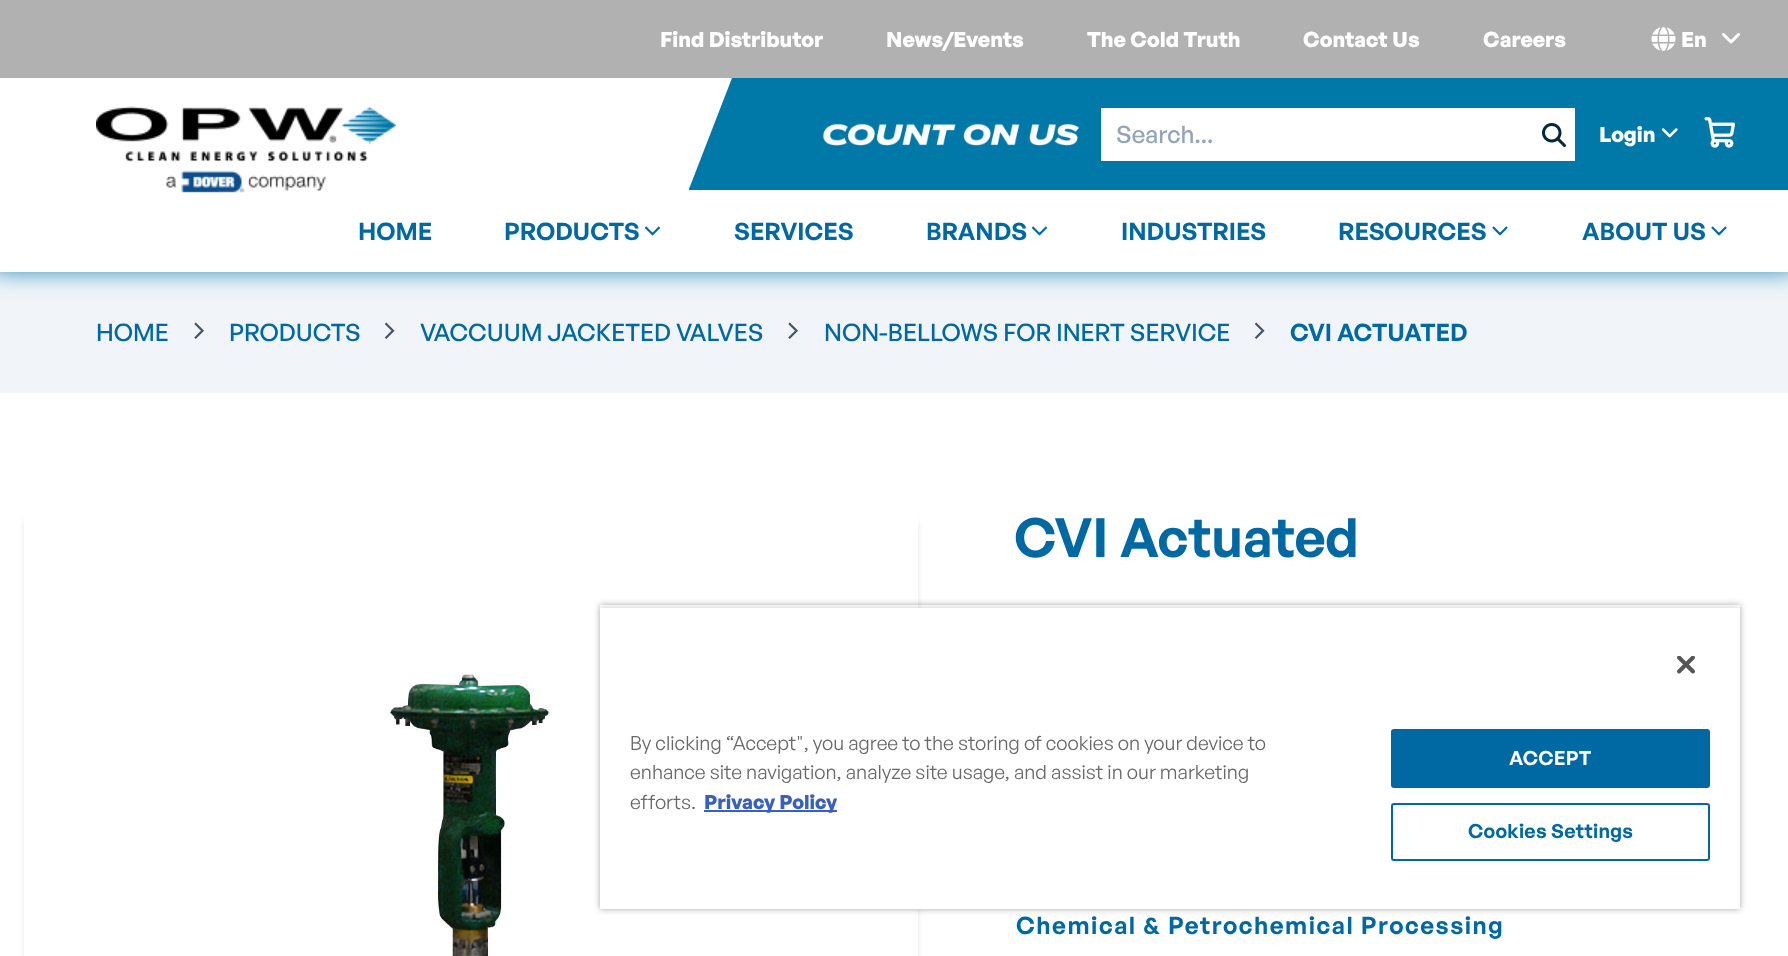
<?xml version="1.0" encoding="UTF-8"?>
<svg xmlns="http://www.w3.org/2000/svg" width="1788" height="956">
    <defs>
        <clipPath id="clip1"><path d="M 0 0 H 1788 V 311 H 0 Z M 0 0 H 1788 V 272 H 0 Z" clip-rule="evenodd"/></clipPath>
        <filter id="blur1" x="-50%" y="-200%" width="200%" height="500%"><feGaussianBlur stdDeviation="13.5"/></filter>
        <clipPath id="clip2"><path d="M 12 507 H 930 V 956 H 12 Z M 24 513 H 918 V 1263 H 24 Z" clip-rule="evenodd"/></clipPath>
        <filter id="blur2" x="-50%" y="-200%" width="200%" height="500%"><feGaussianBlur stdDeviation="4.5"/></filter>
        <clipPath id="clip3"><path d="M 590 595 H 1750 V 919 H 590 Z M 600 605 H 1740 V 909 H 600 Z" clip-rule="evenodd"/></clipPath>
        <filter id="blur3" x="-50%" y="-200%" width="200%" height="500%"><feGaussianBlur stdDeviation="3"/></filter>
        <clipPath id="clip4"><rect x="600" y="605" width="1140" height="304"/></clipPath>
    </defs>
    <rect width="100%" height="100%" fill="#FFFFFF"/>
    <rect x="0" y="272" width="1788" height="121" fill="#F1F5F9"/>
    <g clip-path="url(#clip1)">
        <rect x="-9" y="-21" width="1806" height="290" fill="#0078A8" filter="url(#blur1)"/>
    </g>
    <rect x="0" y="0" width="1788" height="78" fill="#B1B1B1"/>
    <text x="660" y="47" font-family="General Sans" font-size="21" font-weight="700" fill="#FFFFFF">Find Distributor</text>
    <text x="886" y="47" font-family="General Sans" font-size="21" font-weight="700" fill="#FFFFFF">News/Events</text>
    <text x="1087" y="47" font-family="General Sans" font-size="21" font-weight="700" fill="#FFFFFF">The Cold Truth</text>
    <text x="1303" y="47" font-family="General Sans" font-size="21" font-weight="700" fill="#FFFFFF">Contact Us</text>
    <text x="1483" y="47" font-family="General Sans" font-size="21" font-weight="700" fill="#FFFFFF">Careers</text>
    <image x="1651" y="27" width="25" height="24" href="img_01.png"/>
    <text x="1681" y="47" font-family="General Sans" font-size="21" font-weight="700" fill="#FFFFFF">En</text>
    <image x="1722" y="33" width="18" height="11" href="img_02.png"/>
    <image x="96" y="106" width="300" height="87" href="img_03.png"/>
    <path d="M 1788 78 H 732 L 689 189 V 190 H 1788 Z" fill="#0078A8"/>
    <image x="823" y="123" width="257" height="23" href="img_04.png"/>
    <rect x="1101" y="108" width="474" height="53" fill="#FFFFFF"/>
    <text x="1116" y="143" font-family="General Sans" font-size="24" font-weight="500" fill="#94A3B8">Search...</text>
    <image x="1542" y="123" width="24" height="24" href="img_05.png"/>
    <text x="1599" y="142" font-family="General Sans" font-size="21" font-weight="700" fill="#FFFFFF">Login</text>
    <image x="1661" y="128" width="17" height="10" href="img_06.png"/>
    <image x="1704" y="117" width="31" height="31" href="img_07.png"/>
    <text x="358" y="240" font-family="General Sans" font-size="24" font-weight="600" fill="#0069A3">HOME</text>
    <text x="504" y="240" font-family="General Sans" font-size="24" font-weight="600" fill="#0069A3">PRODUCTS</text>
    <image x="644" y="226" width="17" height="10" href="img_08.png"/>
    <text x="734" y="240" font-family="General Sans" font-size="24" font-weight="600" fill="#0069A3">SERVICES</text>
    <text x="926" y="240" font-family="General Sans" font-size="24" font-weight="600" fill="#0069A3">BRANDS</text>
    <image x="1031" y="226" width="17" height="10" href="img_08.png"/>
    <text x="1121" y="240" font-family="General Sans" font-size="24" font-weight="600" fill="#0069A3">INDUSTRIES</text>
    <text x="1338" y="240" font-family="General Sans" font-size="24" font-weight="600" fill="#0069A3">RESOURCES</text>
    <image x="1492" y="226" width="16" height="10" href="img_09.png"/>
    <text x="1582" y="240" font-family="General Sans" font-size="24" font-weight="600" fill="#0069A3">ABOUT US</text>
    <image x="1711" y="226" width="16" height="10" href="img_09.png"/>
    <text x="96" y="341" font-family="General Sans" font-size="24" font-weight="500" fill="#0069A3">HOME</text>
    <image x="194" y="322" width="10" height="17" href="img_10.png"/>
    <text x="229" y="341" font-family="General Sans" font-size="24" font-weight="500" fill="#0069A3">PRODUCTS</text>
    <image x="384" y="322" width="11" height="17" href="img_11.png"/>
    <text x="420" y="341" font-family="General Sans" font-size="24" font-weight="500" fill="#0069A3">VACCUUM JACKETED VALVES</text>
    <image x="788" y="322" width="10" height="17" href="img_10.png"/>
    <text x="824" y="341" font-family="General Sans" font-size="24" font-weight="500" fill="#0069A3">NON-BELLOWS FOR INERT SERVICE</text>
    <image x="1254" y="322" width="11" height="17" href="img_11.png"/>
    <text x="1290" y="341" font-family="General Sans" font-size="24" font-weight="600" fill="#0069A3">CVI ACTUATED</text>
    <g clip-path="url(#clip2)">
        <rect x="27" y="522" width="888" height="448" fill="#CCCCCC" filter="url(#blur2)"/>
    </g>
    <image x="387" y="672" width="163" height="284" href="img_12.png"/>
    <text x="1014" y="557" font-family="General Sans" font-size="54" font-weight="600" fill="#0069A3">CVI Actuated</text>
    <text x="1016" y="934" font-family="General Sans" font-size="24" font-weight="600" letter-spacing="1.5" fill="#0069A3">Chemical &amp; Petrochemical Processing</text>
    <g clip-path="url(#clip3)">
        <rect x="600" y="605" width="1140" height="304" fill="#000000" fill-opacity="0.35" filter="url(#blur3)"/>
    </g>
    <g clip-path="url(#clip4)">
        <rect x="600" y="608" width="1140" height="301" fill="#000000" fill-opacity="0.2" filter="url(#blur3)"/>
    </g>
    <rect x="600" y="608" width="1140" height="301" fill="#FFFFFF"/>
    <image x="1677" y="656" width="18" height="18" href="img_13.png"/>
    <text font-family="General Sans" font-size="19.5" fill="#696969">
        <tspan x="630" y="750">By clicking “Accept", you agree to the storing of cookies on your device to</tspan>
        <tspan x="630" y="779">enhance site navigation, analyze site usage, and assist in our marketing</tspan>
        <tspan x="630" y="809">efforts.</tspan>
    </text>
    <rect x="704" y="810" width="133" height="2" fill="#3860BE"/>
    <text x="704" y="809" font-family="General Sans" font-size="19.5" font-weight="700" fill="#3860BE">Privacy Policy</text>
    <rect x="1392" y="730" width="317" height="57" rx="2" fill="#0069A3" stroke="#0069A3" stroke-width="2"/>
    <text x="1509" y="765" font-family="General Sans" font-size="19.5" font-weight="600" letter-spacing="0.25" fill="#FFFFFF">ACCEPT</text>
    <rect x="1392" y="804" width="317" height="56" rx="2" fill="none" stroke="#0069A3" stroke-width="2"/>
    <text x="1468" y="838" font-family="General Sans" font-size="19.5" font-weight="600" letter-spacing="0.25" fill="#0069A3">Cookies Settings</text>
</svg>
